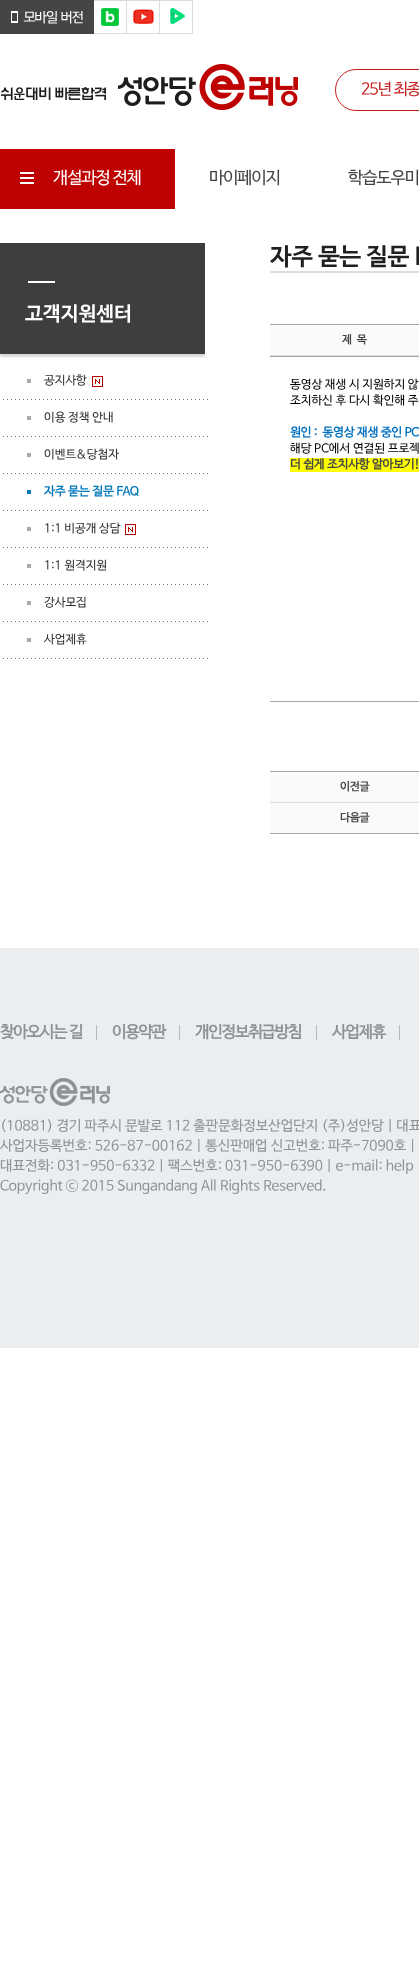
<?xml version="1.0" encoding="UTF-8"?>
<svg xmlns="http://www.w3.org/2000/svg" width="419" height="1980">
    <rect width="100%" height="100%" fill="#FFFFFF"/>
    <image x="0" y="0" width="94" height="34" href="img_01.png"/>
    <rect x="94" y="0" width="99" height="1" fill="#DADCDE"/>
    <rect x="126" y="0" width="1" height="34" fill="#DADCDE"/>
    <rect x="94" y="33" width="33" height="1" fill="#DADCDE"/>
    <image x="101" y="8" width="18" height="18" href="img_02.png"/>
    <rect x="159" y="0" width="1" height="34" fill="#DADCDE"/>
    <rect x="127" y="33" width="33" height="1" fill="#DADCDE"/>
    <image x="133" y="9" width="21" height="15" href="img_03.png"/>
    <rect x="192" y="0" width="1" height="34" fill="#DADCDE"/>
    <rect x="160" y="33" width="33" height="1" fill="#DADCDE"/>
    <image x="170" y="8" width="15" height="16" href="img_04.png"/>
    <image x="1" y="64" width="297" height="46" href="img_05.png"/>
    <rect x="335.5" y="69.5" width="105" height="41" rx="20.5" fill="none" stroke="#C62120"/>
    <text x="361" y="94" font-family="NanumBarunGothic" font-size="16" letter-spacing="-1" fill="#C62120">25년 최종</text>
    <rect x="0" y="149" width="175" height="60" fill="#BE0201"/>
    <image x="20" y="172" width="14" height="12" href="img_06.png"/>
    <text x="53" y="183" font-family="NanumBarunGothic" font-size="17" letter-spacing="-1" fill="#FFFFFF">개설과정 전체</text>
    <text x="209" y="183" font-family="NanumBarunGothic" font-size="17" letter-spacing="-1" fill="#444444">마이페이지</text>
    <text x="348" y="183" font-family="NanumBarunGothic" font-size="17" letter-spacing="-1" fill="#444444">학습도우미</text>
    <image x="0" y="243" width="205" height="115" href="img_07.png"/>
    <text x="25" y="320" font-family="NanumBarunGothic" font-size="20" font-weight="700" fill="#FFFFFF">고객지원센터</text>
    <image x="3" y="399" width="205" height="1" href="img_08.png"/>
    <rect x="27" y="379" width="4" height="4" fill="#A9A9A9"/>
    <text x="44" y="384" font-family="NanumBarunGothic" font-size="12" fill="#323232">공지사항</text>
    <image x="92" y="376" width="11" height="11" href="img_09.png"/>
    <image x="3" y="436" width="205" height="1" href="img_08.png"/>
    <text x="44" y="421" font-family="NanumBarunGothic" font-size="12" fill="#323232">이용 정책 안내</text>
    <rect x="27" y="416" width="4" height="4" fill="#A9A9A9"/>
    <image x="3" y="473" width="205" height="1" href="img_08.png"/>
    <text x="44" y="458" font-family="NanumBarunGothic" font-size="12" fill="#323232">이벤트&amp;당첨자</text>
    <rect x="27" y="453" width="4" height="4" fill="#A9A9A9"/>
    <image x="3" y="510" width="205" height="1" href="img_08.png"/>
    <text x="44" y="495" font-family="'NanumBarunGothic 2'" font-size="12" font-weight="700" fill="#0079BC">자주 묻는 질문 FAQ</text>
    <rect x="27" y="490" width="4" height="4" fill="#0079BC"/>
    <image x="3" y="547" width="205" height="1" href="img_08.png"/>
    <rect x="27" y="527" width="4" height="4" fill="#A9A9A9"/>
    <text x="44" y="532" font-family="NanumBarunGothic" font-size="12" fill="#323232">1:1 비공개 상담</text>
    <image x="125" y="524" width="11" height="11" href="img_09.png"/>
    <image x="3" y="584" width="205" height="1" href="img_08.png"/>
    <text x="44" y="569" font-family="NanumBarunGothic" font-size="12" fill="#323232">1:1 원격지원</text>
    <rect x="27" y="564" width="4" height="4" fill="#A9A9A9"/>
    <image x="3" y="621" width="205" height="1" href="img_08.png"/>
    <text x="44" y="606" font-family="NanumBarunGothic" font-size="12" fill="#323232">강사모집</text>
    <rect x="27" y="601" width="4" height="4" fill="#A9A9A9"/>
    <image x="3" y="658" width="205" height="1" href="img_08.png"/>
    <text x="44" y="643" font-family="NanumBarunGothic" font-size="12" fill="#323232">사업제휴</text>
    <rect x="27" y="638" width="4" height="4" fill="#A9A9A9"/>
    <rect x="270" y="271" width="149" height="2" fill="#DDDDDD"/>
    <text x="270" y="264" font-family="NanumBarunGothic" font-size="24" font-weight="700" fill="#202020">자주 묻는 질문 F</text>
    <rect x="270" y="324" width="149" height="1" fill="#A5A5A5"/>
    <rect x="270" y="356" width="149" height="1" fill="#A5A5A5"/>
    <rect x="270" y="325" width="149" height="30" fill="#FAFAFA"/>
    <rect x="270" y="355" width="149" height="1" fill="#DBDBDB"/>
    <text x="342" y="343" font-family="'NanumBarunGothic 2'" font-size="11" font-weight="700" fill="#444444" xml:space="preserve">제  목</text>
    <rect x="270" y="701" width="149" height="1" fill="#A5A5A5"/>
    <text font-family="NanumBarunGothic" font-size="12" fill="#000000">
        <tspan x="290" y="388">동영상 재생 시 지원하지 않</tspan>
        <tspan x="290" y="404">조치하신 후 다시 확인해 주</tspan>
    </text>
    <text x="290" y="436" font-family="'NanumBarunGothic 2'" font-size="12" font-weight="700" letter-spacing="-0.1" fill="#0070C0" xml:space="preserve">원인 :  동영상 재생 중인 PC</text>
    <text x="290" y="452" font-family="NanumBarunGothic" font-size="12" fill="#000000">해당 PC에서 연결된 프로젝</text>
    <rect x="290" y="458" width="129" height="14" fill="#FFFF00"/>
    <text x="290" y="468" font-family="'NanumBarunGothic 2'" font-size="12" font-weight="700" letter-spacing="-0.1" fill="#444444">더 쉽게 조치사항 알아보기!</text>
    <rect x="270" y="771" width="149" height="1" fill="#A5A5A5"/>
    <rect x="270" y="833" width="149" height="1" fill="#A5A5A5"/>
    <rect x="270" y="772" width="149" height="30" fill="#FAFAFA"/>
    <rect x="270" y="802" width="149" height="1" fill="#DBDBDB"/>
    <text x="340" y="790" font-family="'NanumBarunGothic 2'" font-size="11" font-weight="700" fill="#444444">이전글</text>
    <rect x="270" y="803" width="149" height="30" fill="#FAFAFA"/>
    <text x="340" y="821" font-family="'NanumBarunGothic 2'" font-size="11" font-weight="700" fill="#444444">다음글</text>
    <rect x="0" y="948" width="419" height="400" fill="#EAEEF1"/>
    <image x="96" y="1025" width="1" height="15" href="img_10.png"/>
    <text x="0" y="1037" font-family="'NanumBarunGothic 2'" font-size="16" font-weight="700" letter-spacing="-1" fill="#8E9295">찾아오시는 길</text>
    <image x="179" y="1025" width="1" height="15" href="img_10.png"/>
    <text x="112" y="1037" font-family="'NanumBarunGothic 2'" font-size="16" font-weight="700" letter-spacing="-1" fill="#8E9295">이용약관</text>
    <image x="316" y="1025" width="1" height="15" href="img_10.png"/>
    <text x="195" y="1037" font-family="'NanumBarunGothic 2'" font-size="16" font-weight="700" letter-spacing="-1" fill="#8E9295">개인정보취급방침</text>
    <image x="399" y="1025" width="1" height="15" href="img_10.png"/>
    <text x="332" y="1037" font-family="'NanumBarunGothic 2'" font-size="16" font-weight="700" letter-spacing="-1" fill="#8E9295">사업제휴</text>
    <image x="0" y="1078" width="110" height="28" href="img_11.png"/>
    <text font-family="NanumBarunGothic" font-size="14" fill="#8E9295">
        <tspan x="0" y="1130">(10881) 경기 파주시 문발로 112 출판문화정보산업단지 (주)성안당 | 대표</tspan>
        <tspan x="0" y="1150">사업자등록번호: 526-87-00162 | 통신판매업 신고번호: 파주-7090호 |</tspan>
        <tspan x="0" y="1170">대표전화: 031-950-6332 | 팩스번호: 031-950-6390 | e-mail: help</tspan>
        <tspan x="0" y="1190">Copyright ⓒ 2015 Sungandang All Rights Reserved.</tspan>
    </text>
</svg>
